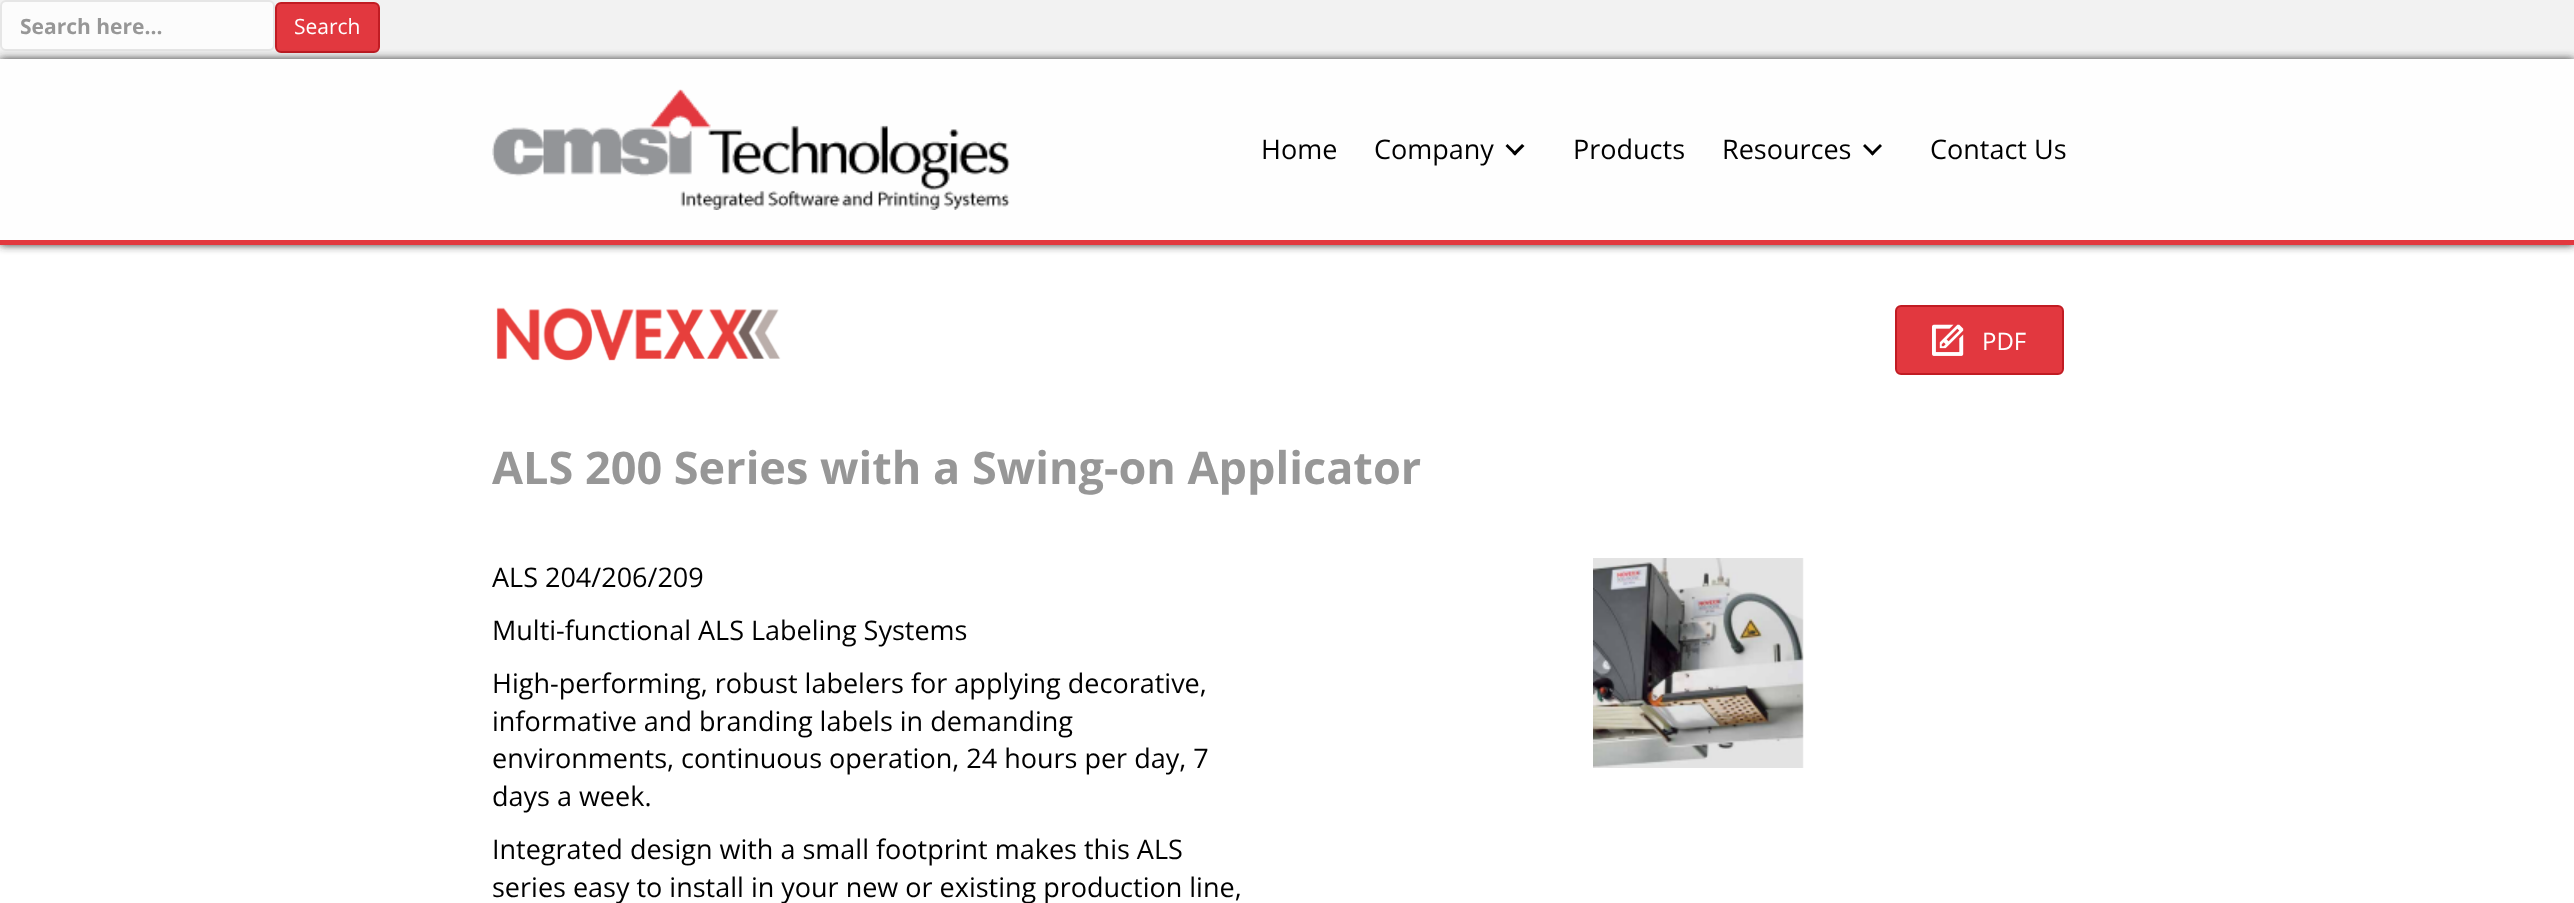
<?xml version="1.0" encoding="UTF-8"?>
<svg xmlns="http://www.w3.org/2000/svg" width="2574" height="903">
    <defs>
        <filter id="blur1" x="-50%" y="-200%" width="200%" height="500%"><feGaussianBlur stdDeviation="4"/></filter>
    </defs>
    <rect width="100%" height="100%" fill="#F2F2F2"/>
    <rect x="1" y="1" width="273" height="49" rx="5" fill="#FCFCFC" stroke="#E6E6E6" stroke-width="2"/>
    <text x="20" y="34" font-family="Open Sans" font-size="21" font-weight="700" fill="#979797">Search here...</text>
    <rect x="276" y="3" width="103" height="49" rx="5" fill="#E2383F" stroke="#C11C23" stroke-width="2"/>
    <text x="294" y="34" font-family="Open Sans" font-size="21" fill="#FFFFFF">Search</text>
    <rect x="0" y="245" width="2574" height="658" fill="#FFFFFF"/>
    <rect x="0" y="59" width="2574" height="186" fill="#333333" filter="url(#blur1)"/>
    <rect x="0" y="59" width="2574" height="181" fill="#FEFEFE"/>
    <rect x="0" y="240" width="2574" height="5" fill="#E2383F"/>
    <image x="492" y="89" width="518" height="121" href="img_01.png"/>
    <text x="1261" y="159" font-family="Open Sans" font-size="27" fill="#000000">Home</text>
    <text x="1374" y="159" font-family="Open Sans" font-size="27" fill="#000000">Company</text>
    <path d="M 1522 144 L 1524.5 146 L 1515 155.5 L 1512.5 153.5 Z" fill="#000000"/>
    <path d="M 1507.5 144 L 1517 153.5 L 1515 155.5 L 1505.5 146 Z" fill="#000000"/>
    <text x="1573" y="159" font-family="Open Sans" font-size="27" fill="#000000">Products</text>
    <text x="1722" y="159" font-family="Open Sans" font-size="27" fill="#000000">Resources</text>
    <path d="M 1880 144 L 1882 146 L 1872.5 155.5 L 1870.5 153.5 Z" fill="#000000"/>
    <path d="M 1865 144 L 1874.5 153.5 L 1872.5 155.5 L 1863 146 Z" fill="#000000"/>
    <text x="1930" y="159" font-family="Open Sans" font-size="27" fill="#000000">Contact Us</text>
    <image x="496" y="307" width="285" height="54" href="img_02.png"/>
    <rect x="1896" y="306" width="167" height="68" rx="5" fill="#E2383F" stroke="#C11C23" stroke-width="2"/>
    <image x="1932" y="324" width="32" height="32" href="img_03.png"/>
    <text x="1982" y="350" font-family="Open Sans" font-size="24" fill="#FFFFFF">PDF</text>
    <text x="492" y="484" font-family="Open Sans" font-size="45" font-weight="700" fill="#979797">ALS 200 Series with a Swing-on Applicator</text>
    <text font-family="Open Sans" font-size="27" fill="#000000">
        <tspan x="492" y="587">ALS 204/206/209</tspan>
        <tspan x="492" y="640">Multi-functional ALS Labeling Systems</tspan>
        <tspan x="492" y="693">High-performing, robust labelers for applying decorative,</tspan>
        <tspan x="492" y="731">informative and branding labels in demanding</tspan>
        <tspan x="492" y="768">environments, continuous operation, 24 hours per day, 7</tspan>
        <tspan x="492" y="806">days a week.</tspan>
        <tspan x="492" y="859">Integrated design with a small footprint makes this ALS</tspan>
        <tspan x="492" y="897">series easy to install in your new or existing production line,</tspan>
    </text>
    <image x="1593" y="558" width="211" height="210" href="img_04.png"/>
</svg>
